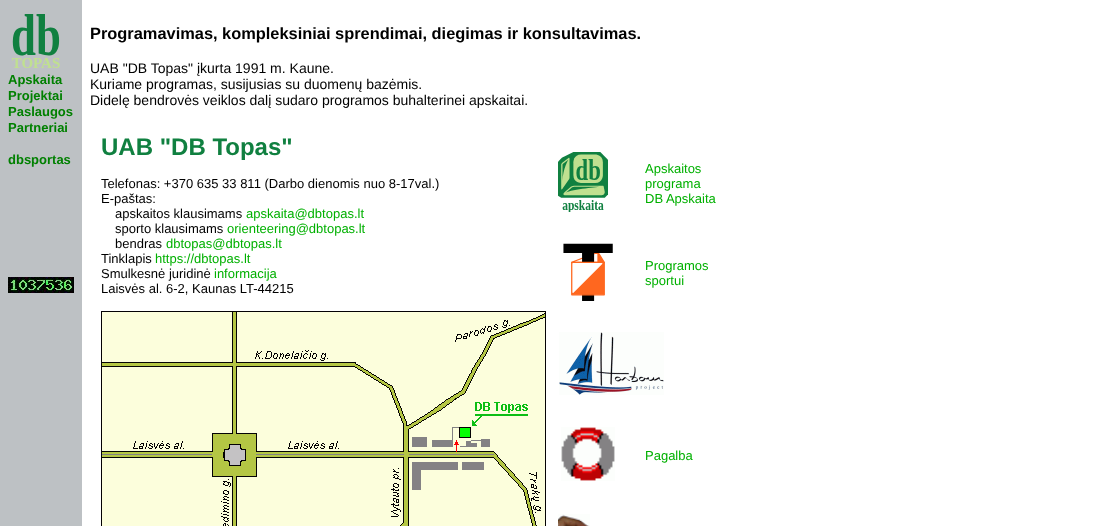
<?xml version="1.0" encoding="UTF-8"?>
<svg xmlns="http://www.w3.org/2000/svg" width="1095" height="526">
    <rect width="100%" height="100%" fill="#FFFFFF"/>
    <rect x="0" y="0" width="82" height="526" fill="#BDC1C4"/>
    <image x="12" y="14" width="48" height="54" href="img_01.png"/>
    <text font-family="Liberation Sans" font-size="13" font-weight="700" fill="#008000">
        <tspan x="8" y="84">Apskaita</tspan>
        <tspan x="8" y="100">Projektai</tspan>
        <tspan x="8" y="116">Paslaugos</tspan>
        <tspan x="8" y="132">Partneriai</tspan>
    </text>
    <text x="8" y="164" font-family="Liberation Sans" font-size="13" font-weight="700" fill="#008000">dbsportas</text>
    <image x="8" y="277" width="66" height="16" href="img_02.png"/>
    <text x="90" y="39" font-family="Liberation Sans" font-size="16.4" font-weight="700" fill="#000000">Programavimas, kompleksiniai sprendimai, diegimas ir konsultavimas.</text>
    <text font-family="Liberation Sans" font-size="14" fill="#000000">
        <tspan x="90" y="73">UAB "DB Topas" įkurta 1991 m. Kaune.</tspan>
        <tspan x="90" y="89">Kuriame programas, susijusias su duomenų bazėmis.</tspan>
        <tspan x="90" y="105">Didelę bendrovės veiklos dalį sudaro programos buhalterinei apskaitai.</tspan>
    </text>
    <text x="101" y="155" font-family="Liberation Sans" font-size="24" font-weight="700" fill="#108040">UAB "DB Topas"</text>
    <text font-family="Liberation Sans" font-size="13" fill="#000000">
        <tspan x="101" y="188">Telefonas: +370 635 33 811 (Darbo dienomis nuo 8-17val.)</tspan>
        <tspan x="101" y="203">E-paštas:</tspan>
    </text>
    <text x="115" y="218" font-family="Liberation Sans" font-size="13" fill="#000000">apskaitos klausimams</text>
    <text x="246" y="218" font-family="Liberation Sans" font-size="13" fill="#00B000">apskaita@dbtopas.lt</text>
    <text x="115" y="233" font-family="Liberation Sans" font-size="13" fill="#000000">sporto klausimams</text>
    <text x="227" y="233" font-family="Liberation Sans" font-size="13" fill="#00B000">orienteering@dbtopas.lt</text>
    <text x="115" y="248" font-family="Liberation Sans" font-size="13" fill="#000000">bendras</text>
    <text x="166" y="248" font-family="Liberation Sans" font-size="13" fill="#00B000">dbtopas@dbtopas.lt</text>
    <text x="101" y="263" font-family="Liberation Sans" font-size="13" fill="#000000">Tinklapis</text>
    <text x="155" y="263" font-family="Liberation Sans" font-size="13" fill="#00B000">https://dbtopas.lt</text>
    <text x="101" y="278" font-family="Liberation Sans" font-size="13" fill="#000000">Smulkesnė juridinė</text>
    <text x="214" y="278" font-family="Liberation Sans" font-size="13" fill="#00B000">informacija</text>
    <text x="101" y="293" font-family="Liberation Sans" font-size="13" fill="#000000">Laisvės al. 6-2, Kaunas LT-44215</text>
    <image x="101" y="311" width="445" height="215" href="img_03.png"/>
    <image x="558" y="152" width="50" height="60" href="img_04.png"/>
    <text font-family="Liberation Sans" font-size="13" fill="#00B000">
        <tspan x="645" y="173">Apskaitos</tspan>
        <tspan x="645" y="188">programa</tspan>
        <tspan x="645" y="203">DB Apskaita</tspan>
    </text>
    <image x="563" y="243" width="50" height="58" href="img_05.png"/>
    <text font-family="Liberation Sans" font-size="13" fill="#00B000">
        <tspan x="645" y="270">Programos</tspan>
        <tspan x="645" y="285">sportui</tspan>
    </text>
    <image x="559" y="332" width="105" height="63" href="img_06.png"/>
    <image x="561" y="427" width="54" height="54" href="img_07.png"/>
    <text x="645" y="460" font-family="Liberation Sans" font-size="13" fill="#00B000">Pagalba</text>
    <image x="558" y="514" width="32" height="12" href="img_08.png"/>
</svg>
